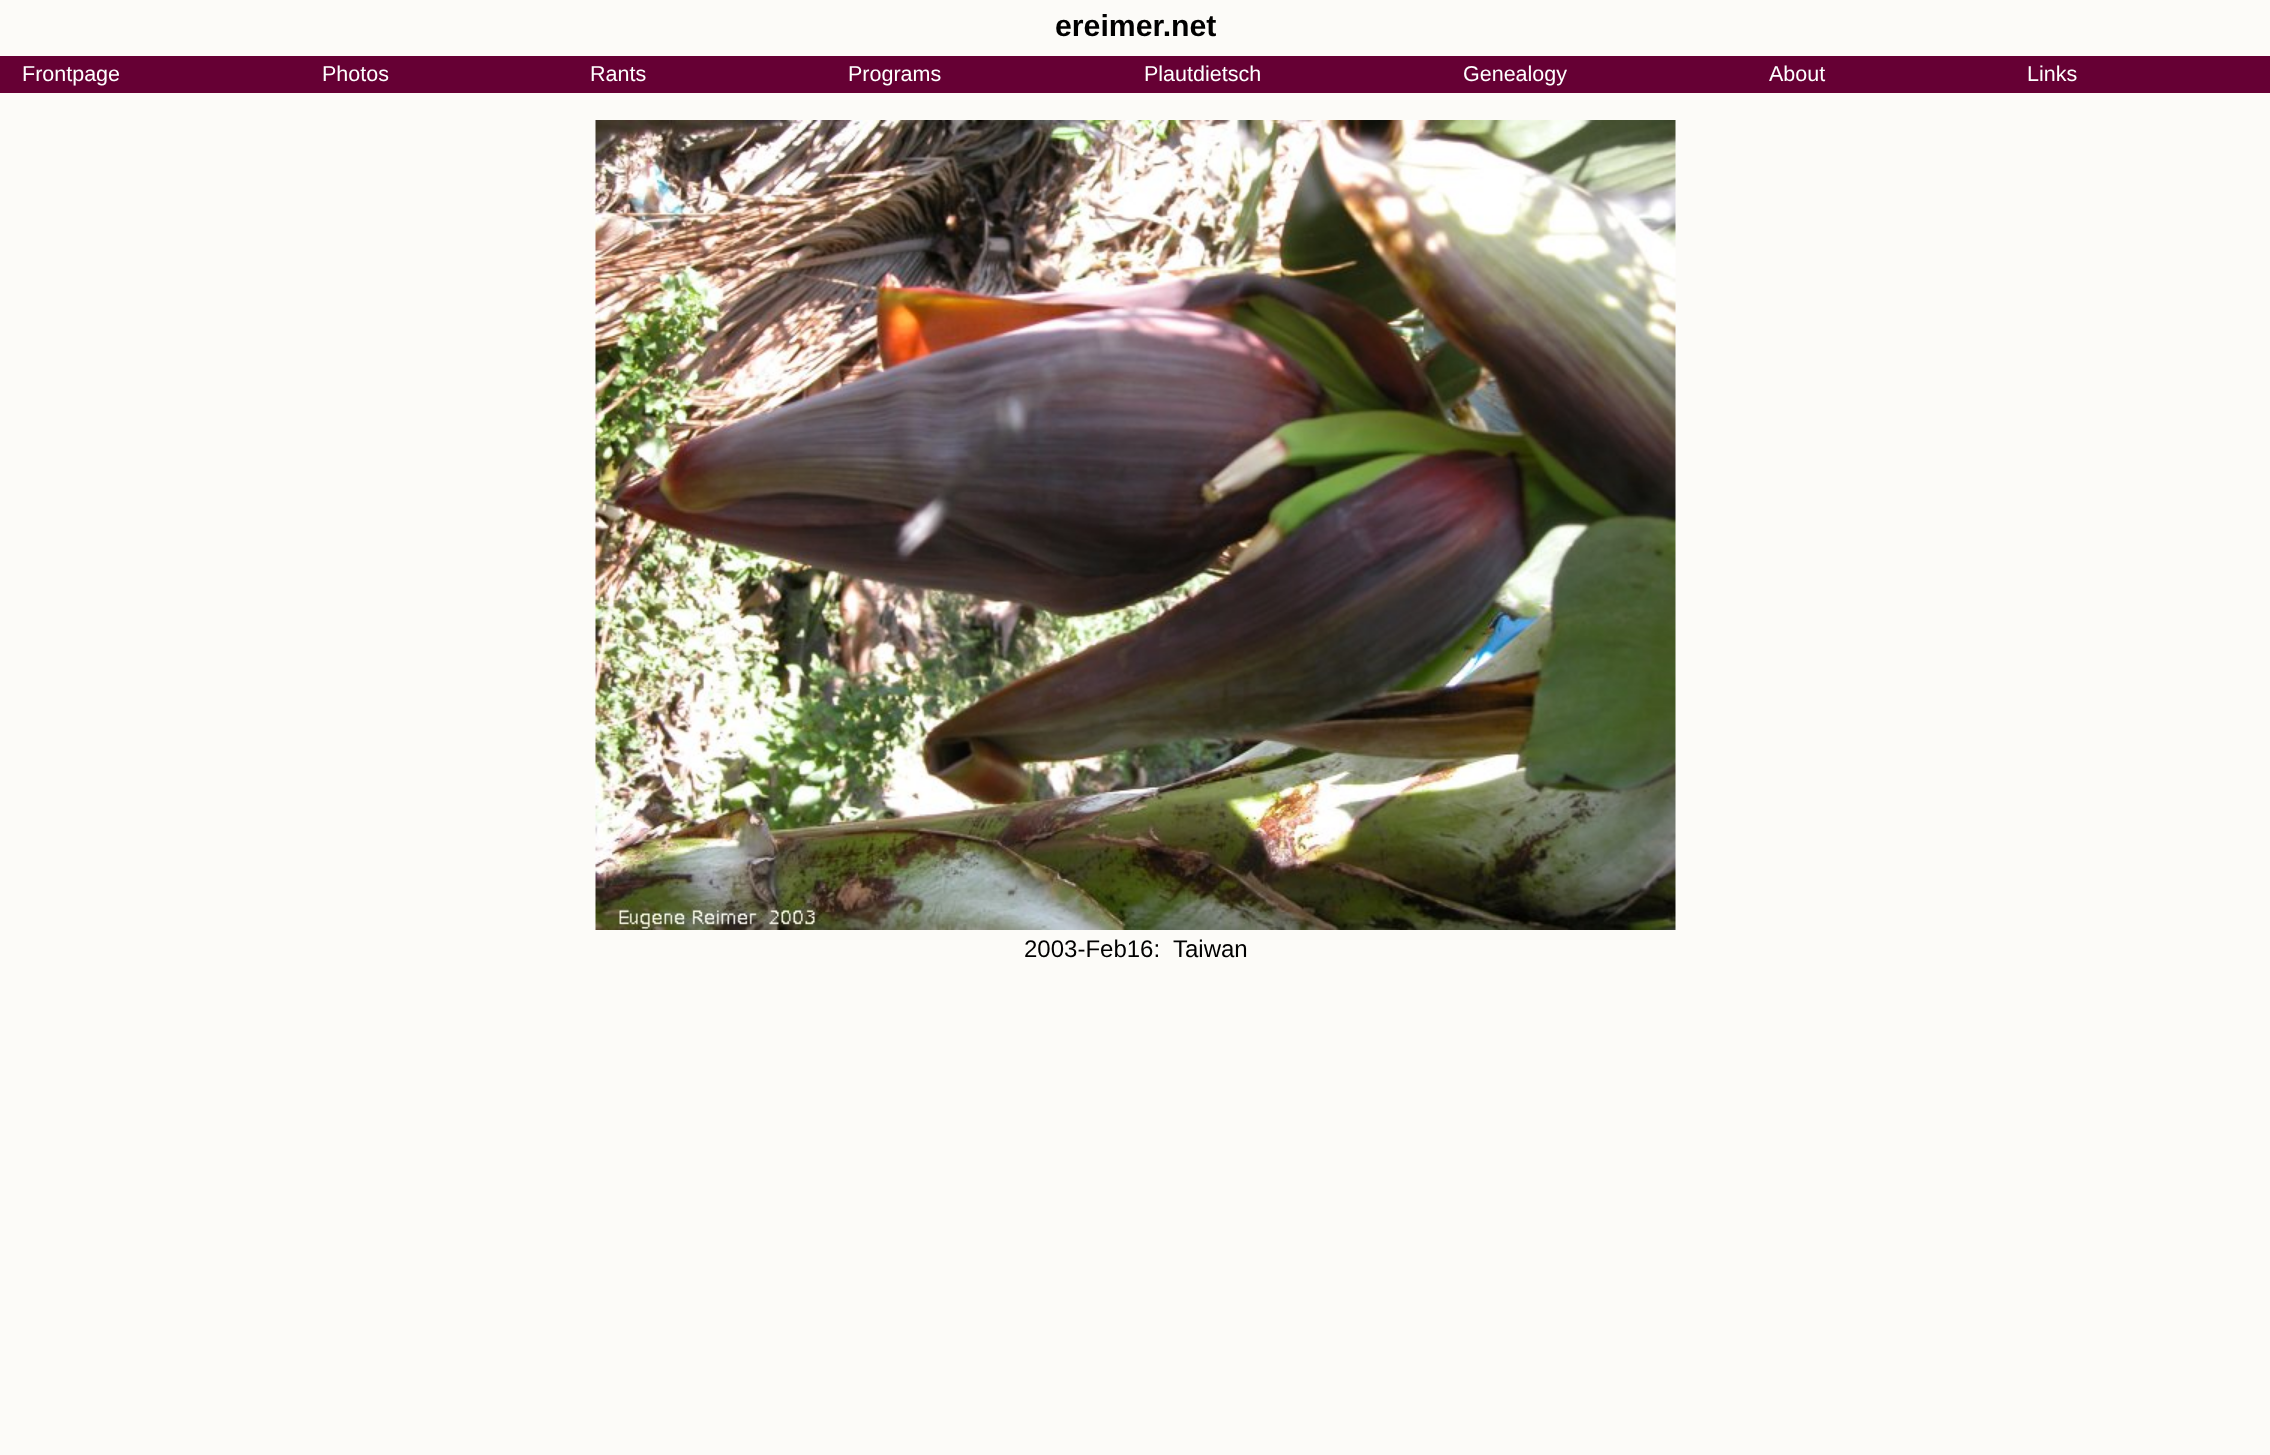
<?xml version="1.0" encoding="UTF-8"?>
<svg xmlns="http://www.w3.org/2000/svg" width="2270" height="1455">
    <rect width="100%" height="100%" fill="#FCFBF8"/>
    <text x="1055" y="36" font-family="Liberation Sans" font-size="30.25" font-weight="700" fill="#000000">ereimer.net</text>
    <rect x="0" y="56" width="2270" height="37" fill="#660034"/>
    <text x="22" y="81" font-family="Liberation Sans" font-size="21.5" fill="#FFFFFF">Frontpage</text>
    <text x="322" y="81" font-family="Liberation Sans" font-size="21.5" fill="#FFFFFF">Photos</text>
    <text x="590" y="81" font-family="Liberation Sans" font-size="21.5" fill="#FFFFFF">Rants</text>
    <text x="848" y="81" font-family="Liberation Sans" font-size="21.5" fill="#FFFFFF">Programs</text>
    <text x="1144" y="81" font-family="Liberation Sans" font-size="21.5" fill="#FFFFFF">Plautdietsch</text>
    <text x="1463" y="81" font-family="Liberation Sans" font-size="21.5" fill="#FFFFFF">Genealogy</text>
    <text x="1769" y="81" font-family="Liberation Sans" font-size="21.5" fill="#FFFFFF">About</text>
    <text x="2027" y="81" font-family="Liberation Sans" font-size="21.5" fill="#FFFFFF">Links</text>
    <image x="595" y="120" width="1081" height="810" href="img_01.png"/>
    <text x="1024" y="957" font-family="Liberation Sans" font-size="24" fill="#000000" xml:space="preserve">2003-Feb16:  Taiwan</text>
</svg>
